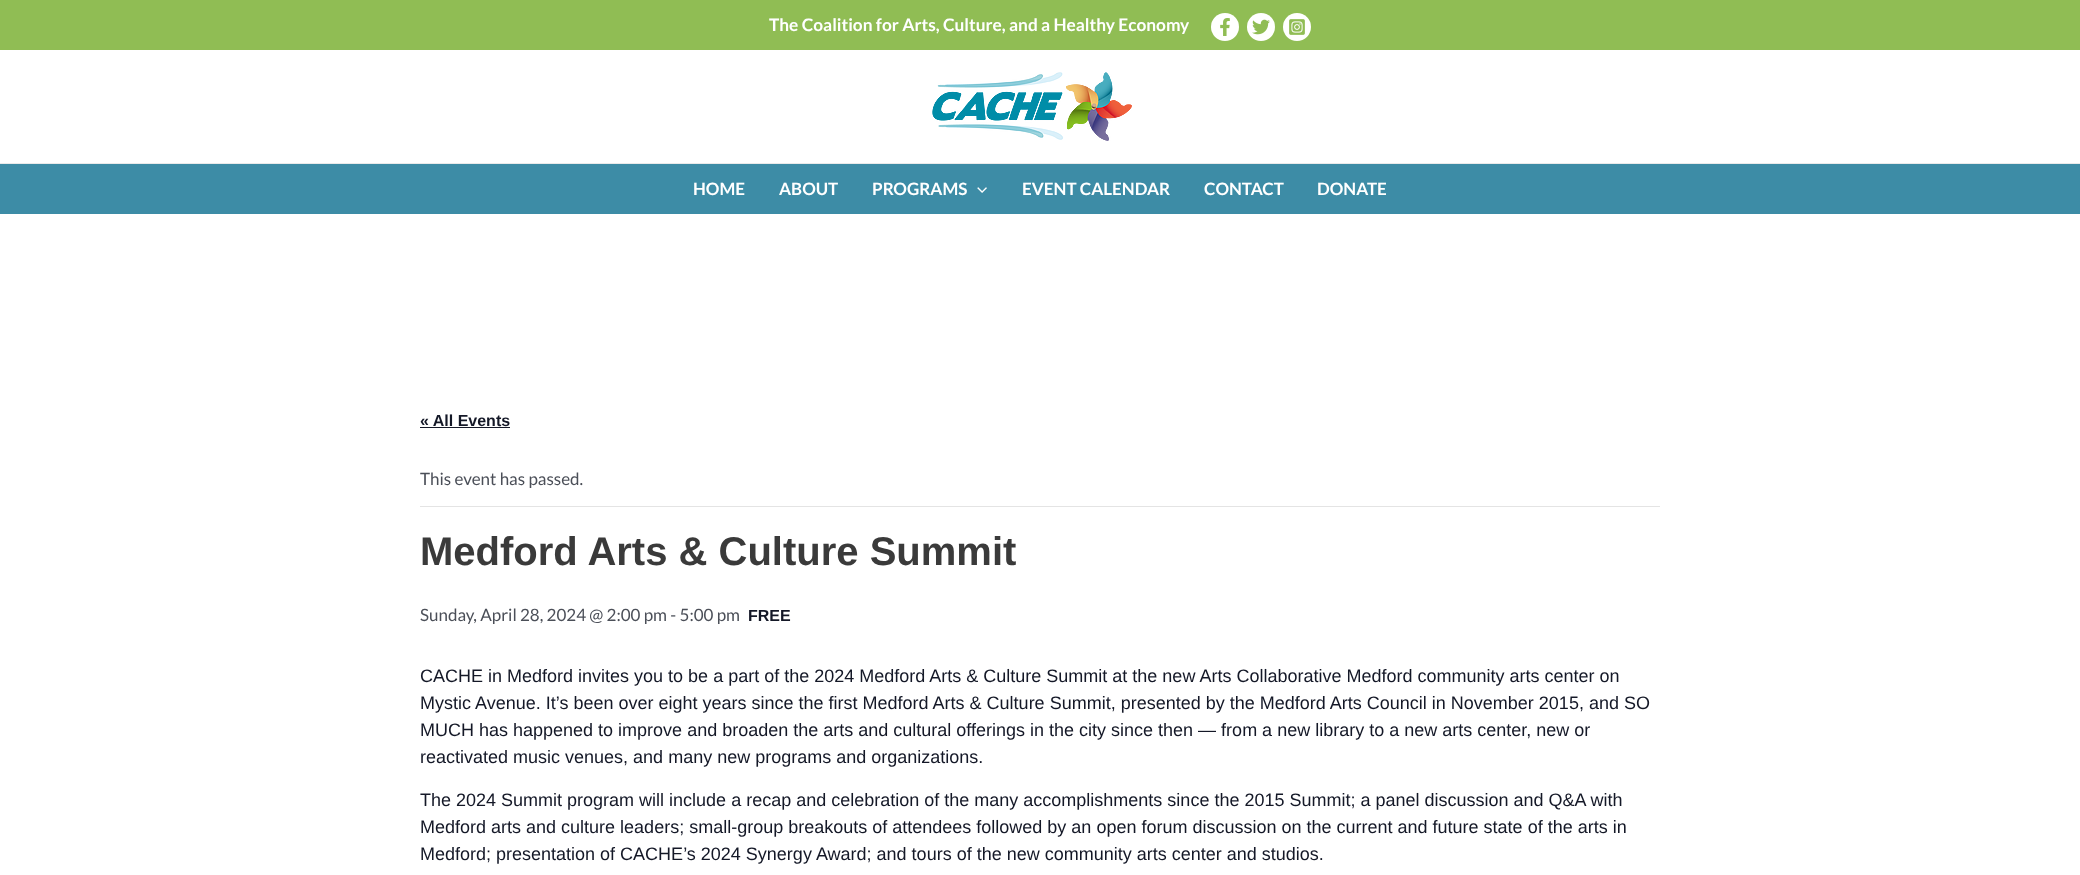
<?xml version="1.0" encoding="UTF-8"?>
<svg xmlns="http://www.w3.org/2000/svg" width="2080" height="875">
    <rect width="100%" height="100%" fill="#FFFFFF"/>
    <rect x="0" y="0" width="2080" height="50" fill="#90BD54"/>
    <text x="769" y="31" font-family="Lato" font-size="17.3" font-weight="700" fill="#FFFFFF">The Coalition for Arts, Culture, and a Healthy Economy</text>
    <circle cx="1225" cy="27" r="14" fill="#FFFFFF"/>
    <image x="1220" y="18" width="10" height="18" href="img_01.png"/>
    <circle cx="1261" cy="27" r="14" fill="#FFFFFF"/>
    <image x="1252" y="19" width="18" height="16" href="img_02.png"/>
    <circle cx="1297" cy="27" r="14" fill="#FFFFFF"/>
    <image x="1289" y="19" width="16" height="16" href="img_03.png"/>
    <rect x="0" y="163" width="2080" height="1" fill="#EAEAEA"/>
    <image x="932" y="72" width="200" height="69" href="img_04.png"/>
    <rect x="0" y="164" width="2080" height="50" fill="#3D8CA6"/>
    <text x="693" y="195" font-family="Lato" font-size="17" font-weight="700" fill="#FFFFFF">HOME</text>
    <text x="779" y="195" font-family="Lato" font-size="17" font-weight="700" fill="#FFFFFF">ABOUT</text>
    <text x="872" y="195" font-family="Lato" font-size="17" font-weight="700" fill="#FFFFFF">PROGRAMS</text>
    <image x="977" y="187" width="10" height="6" href="img_05.png"/>
    <text x="1022" y="195" font-family="Lato" font-size="17" font-weight="700" fill="#FFFFFF">EVENT CALENDAR</text>
    <text x="1204" y="195" font-family="Lato" font-size="17" font-weight="700" fill="#FFFFFF">CONTACT</text>
    <text x="1317" y="195" font-family="Lato" font-size="17" font-weight="700" fill="#FFFFFF">DONATE</text>
    <text x="420" y="426" font-family="Liberation Sans" font-size="16" font-weight="700" fill="#141827">« All Events</text>
    <rect x="420" y="427" width="90" height="1" fill="#141827"/>
    <rect x="420" y="506" width="1240" height="1" fill="#E4E4E4"/>
    <text x="420" y="485" font-family="Lato" font-size="17" fill="#4B4F58">This event has passed.</text>
    <text x="420" y="565" font-family="Liberation Sans" font-size="40" font-weight="700" fill="#3A3A3A">Medford Arts &amp; Culture Summit</text>
    <text x="420" y="621" font-family="Lato" font-size="17" fill="#4B4F58">Sunday, April 28, 2024 @ 2:00 pm - 5:00 pm</text>
    <text x="748" y="621" font-family="Liberation Sans" font-size="16" font-weight="700" fill="#141827">FREE</text>
    <text font-family="Liberation Sans" font-size="18" fill="#141827">
        <tspan x="420" y="682">CACHE in Medford invites you to be a part of the 2024 Medford Arts &amp; Culture Summit at the new Arts Collaborative Medford community arts center on</tspan>
        <tspan x="420" y="709">Mystic Avenue. It’s been over eight years since the first Medford Arts &amp; Culture Summit, presented by the Medford Arts Council in November 2015, and SO</tspan>
        <tspan x="420" y="736">MUCH has happened to improve and broaden the arts and cultural offerings in the city since then — from a new library to a new arts center, new or</tspan>
        <tspan x="420" y="763">reactivated music venues, and many new programs and organizations.</tspan>
    </text>
    <text font-family="Liberation Sans" font-size="18" fill="#141827">
        <tspan x="420" y="806">The 2024 Summit program will include a recap and celebration of the many accomplishments since the 2015 Summit; a panel discussion and Q&amp;A with</tspan>
        <tspan x="420" y="833">Medford arts and culture leaders; small-group breakouts of attendees followed by an open forum discussion on the current and future state of the arts in</tspan>
        <tspan x="420" y="860">Medford; presentation of CACHE’s 2024 Synergy Award; and tours of the new community arts center and studios.</tspan>
    </text>
</svg>
